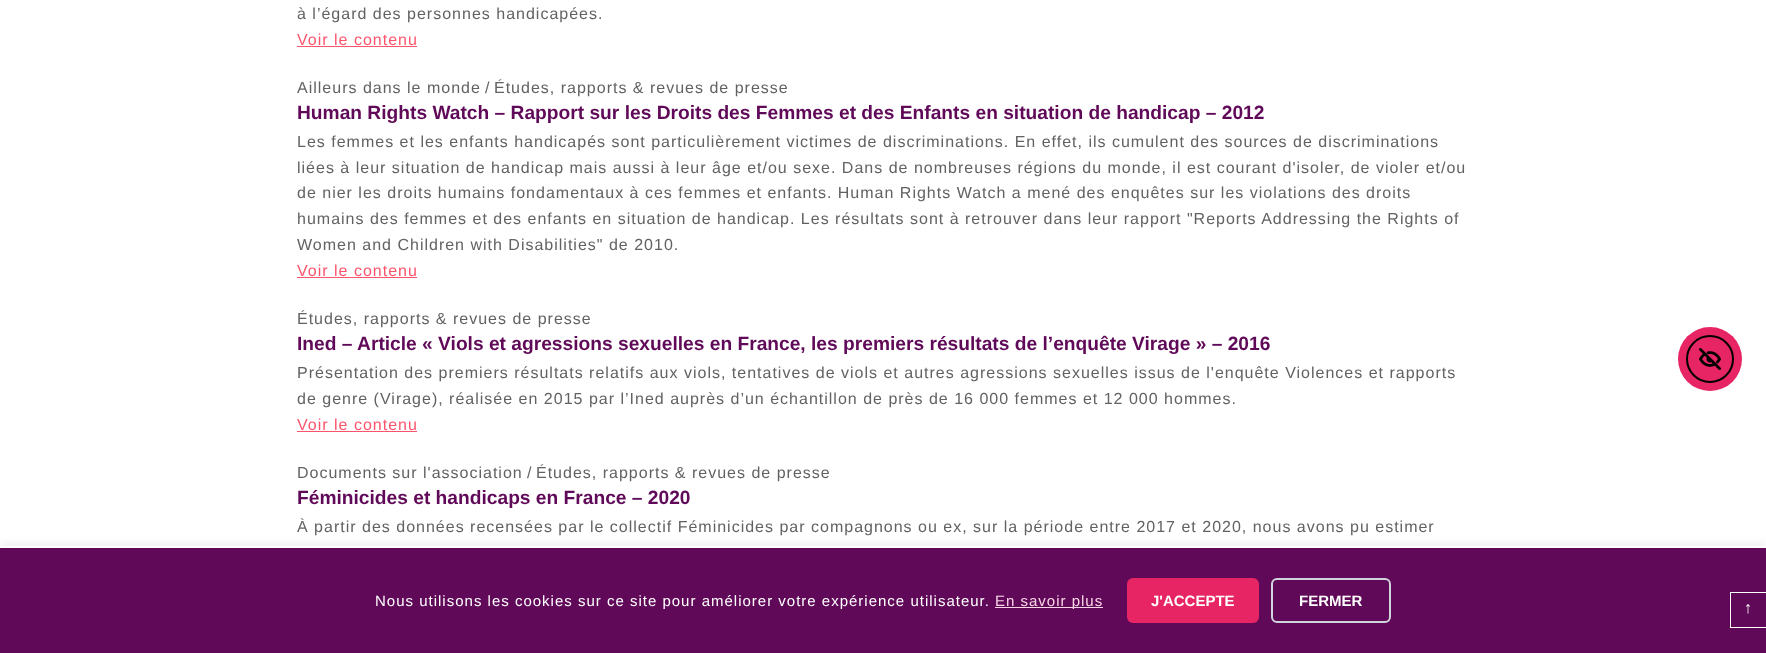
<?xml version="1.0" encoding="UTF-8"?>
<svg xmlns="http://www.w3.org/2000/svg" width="1766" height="653">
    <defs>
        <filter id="blur1" x="-50%" y="-200%" width="200%" height="500%"><feGaussianBlur stdDeviation="5"/></filter>
    </defs>
    <rect width="100%" height="100%" fill="#FFFFFF"/>
    <text x="297" y="19" font-family="Liberation Sans" font-size="16" letter-spacing="1" fill="#626262">à l’égard des personnes handicapées.</text>
    <text x="297" y="45" font-family="Liberation Sans" font-size="16" letter-spacing="1" fill="#FD546C">Voir le contenu</text>
    <rect x="297" y="46" width="120" height="1" fill="#FD546C"/>
    <text x="297" y="93" font-family="Liberation Sans" font-size="16" letter-spacing="1" fill="#626262">Ailleurs dans le monde</text>
    <text x="485" y="93" font-family="Liberation Sans" font-size="16" fill="#626262">/</text>
    <text x="494" y="93" font-family="Liberation Sans" font-size="16" letter-spacing="1" fill="#626262">Études, rapports &amp; revues de presse</text>
    <text x="297" y="119" font-family="Liberation Sans" font-size="19.2" font-weight="700" fill="#600958">Human Rights Watch – Rapport sur les Droits des Femmes et des Enfants en situation de handicap – 2012</text>
    <text font-family="Liberation Sans" font-size="16" letter-spacing="1" fill="#626262">
        <tspan x="297" y="147">Les femmes et les enfants handicapés sont particulièrement victimes de discriminations. En effet, ils cumulent des sources de discriminations</tspan>
        <tspan x="297" y="173">liées à leur situation de handicap mais aussi à leur âge et/ou sexe. Dans de nombreuses régions du monde, il est courant d'isoler, de violer et/ou</tspan>
        <tspan x="297" y="198">de nier les droits humains fondamentaux à ces femmes et enfants. Human Rights Watch a mené des enquêtes sur les violations des droits</tspan>
        <tspan x="297" y="224">humains des femmes et des enfants en situation de handicap. Les résultats sont à retrouver dans leur rapport "Reports Addressing the Rights of</tspan>
        <tspan x="297" y="250">Women and Children with Disabilities" de 2010.</tspan>
    </text>
    <text x="297" y="276" font-family="Liberation Sans" font-size="16" letter-spacing="1" fill="#FD546C">Voir le contenu</text>
    <rect x="297" y="277" width="120" height="1" fill="#FD546C"/>
    <text x="297" y="324" font-family="Liberation Sans" font-size="16" letter-spacing="1" fill="#626262">Études, rapports &amp; revues de presse</text>
    <text x="297" y="350" font-family="Liberation Sans" font-size="19.2" font-weight="700" fill="#600958">Ined – Article « Viols et agressions sexuelles en France, les premiers résultats de l’enquête Virage » – 2016</text>
    <text font-family="Liberation Sans" font-size="16" letter-spacing="1" fill="#626262">
        <tspan x="297" y="378">Présentation des premiers résultats relatifs aux viols, tentatives de viols et autres agressions sexuelles issus de l'enquête Violences et rapports</tspan>
        <tspan x="297" y="404">de genre (Virage), réalisée en 2015 par l’Ined auprès d’un échantillon de près de 16 000 femmes et 12 000 hommes.</tspan>
    </text>
    <text x="297" y="430" font-family="Liberation Sans" font-size="16" letter-spacing="1" fill="#FD546C">Voir le contenu</text>
    <rect x="297" y="431" width="120" height="1" fill="#FD546C"/>
    <text x="297" y="478" font-family="Liberation Sans" font-size="16" letter-spacing="1" fill="#626262">Documents sur l'association</text>
    <text x="527" y="478" font-family="Liberation Sans" font-size="16" fill="#626262">/</text>
    <text x="536" y="478" font-family="Liberation Sans" font-size="16" letter-spacing="1" fill="#626262">Études, rapports &amp; revues de presse</text>
    <text x="297" y="504" font-family="Liberation Sans" font-size="19.2" font-weight="700" fill="#600958">Féminicides et handicaps en France – 2020</text>
    <text x="297" y="532" font-family="Liberation Sans" font-size="16" letter-spacing="1" fill="#626262">À partir des données recensées par le collectif Féminicides par compagnons ou ex, sur la période entre 2017 et 2020, nous avons pu estimer</text>
    <rect x="0" y="544" width="1766" height="107" fill="#000000" fill-opacity="0.08" filter="url(#blur1)"/>
    <rect x="0" y="548" width="1766" height="105" fill="#600958"/>
    <rect x="1730" y="592" width="36" height="1" fill="#FFFFFF"/>
    <rect x="1730" y="627" width="36" height="1" fill="#FFFFFF"/>
    <rect x="1730" y="592" width="1" height="36" fill="#FFFFFF"/>
    <text x="1744" y="613" font-family="Liberation Sans" font-size="16" letter-spacing="1" fill="#FFFFFF">↑</text>
    <circle cx="1710" cy="359" r="32" fill="#E72565"/>
    <circle cx="1710" cy="359" r="23" fill="none" stroke="#000000" stroke-width="2"/>
    <image x="1699" y="348" width="22" height="22" href="img_01.png"/>
    <rect x="0" y="546" width="1766" height="2" fill="#FFFFFF"/>
    <text x="375" y="606" font-family="Liberation Sans" font-size="15" letter-spacing="1" fill="#FFFFFF">Nous utilisons les cookies sur ce site pour améliorer votre expérience utilisateur.</text>
    <rect x="995" y="607" width="108" height="1" fill="#F9D5E6"/>
    <text x="995" y="606" font-family="Liberation Sans" font-size="15" letter-spacing="1" fill="#F9D5E6">En savoir plus</text>
    <rect x="1127" y="578" width="132" height="45" rx="6" fill="#E72565"/>
    <text x="1151" y="606" font-family="Liberation Sans" font-size="15" font-weight="700" fill="#FFFFFF">J'ACCEPTE</text>
    <rect x="1272" y="579" width="118" height="43" rx="5" fill="none" stroke="#D1D5DB" stroke-width="2"/>
    <text x="1299" y="606" font-family="Liberation Sans" font-size="15" font-weight="700" fill="#FFFFFF">FERMER</text>
</svg>
